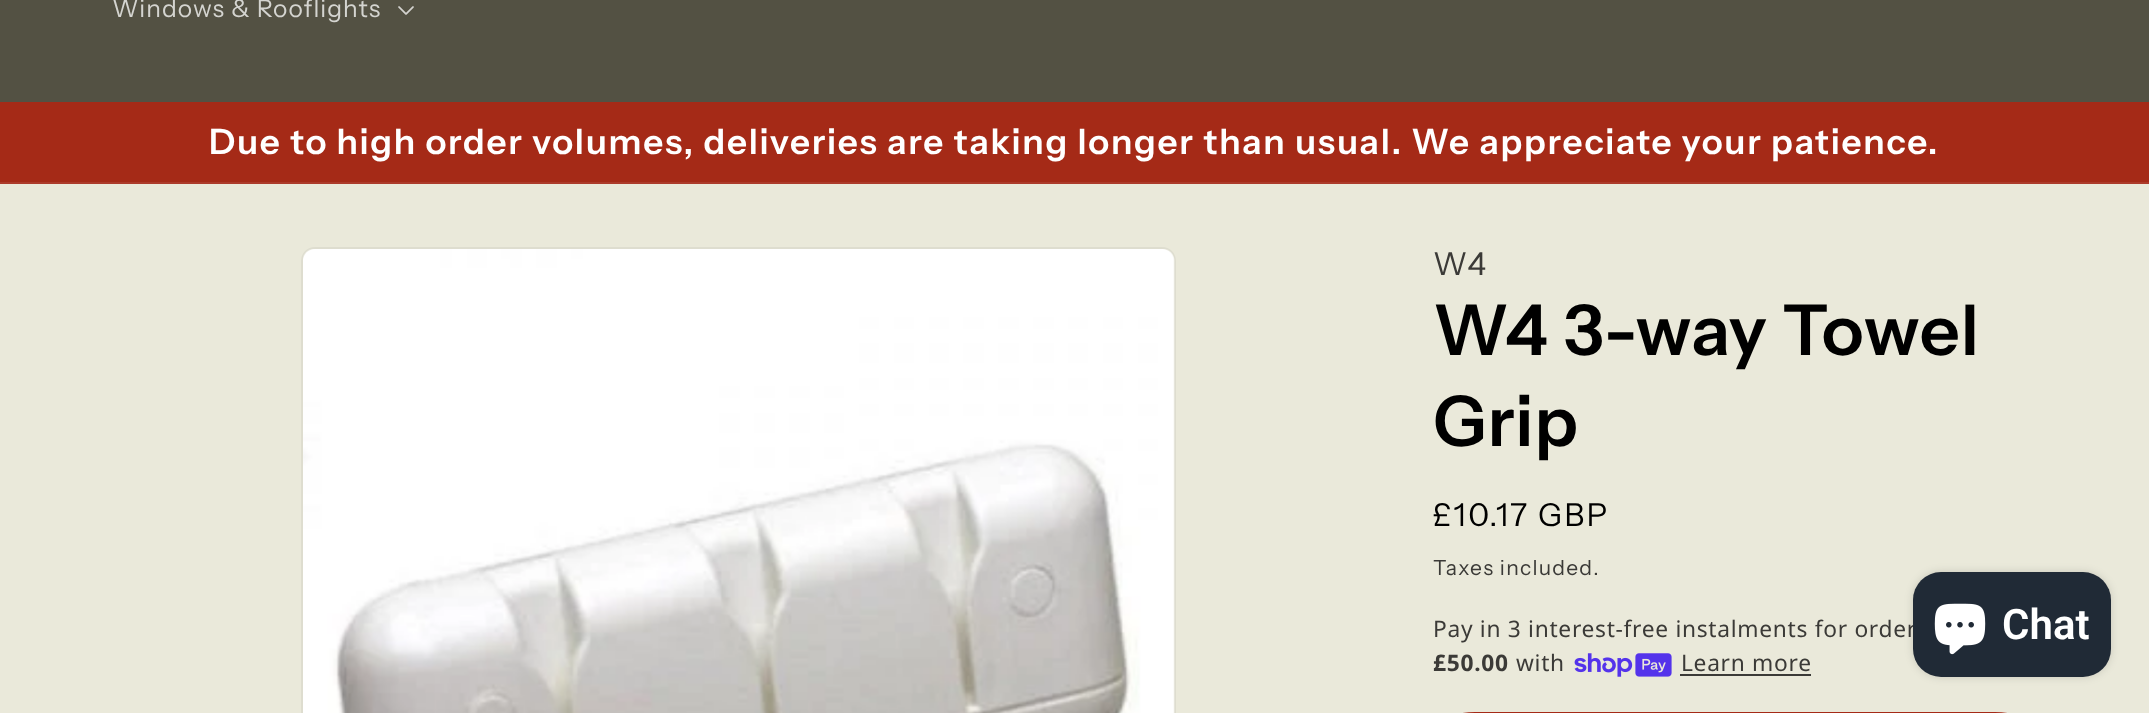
<?xml version="1.0" encoding="UTF-8"?>
<svg xmlns="http://www.w3.org/2000/svg" width="2149" height="713">
    <defs>
        <filter id="blur1" x="-50%" y="-200%" width="200%" height="500%"><feGaussianBlur stdDeviation="4.5"/></filter>
    </defs>
    <rect width="100%" height="100%" fill="#EAE9DA"/>
    <rect x="0" y="0" width="2149" height="102" fill="#535143"/>
    <text x="112" y="17" font-family="Instrument Sans" font-size="24.5" letter-spacing="1.05" fill="#D4D4D0">Windows &amp; Rooflights</text>
    <image x="398" y="6" width="16" height="9" href="img_01.png"/>
    <rect x="0" y="102" width="2149" height="80" fill="#A52A17"/>
    <rect x="0" y="182" width="2149" height="2" fill="#AC3B2A"/>
    <text x="209" y="154" font-family="Instrument Sans" font-size="35" font-weight="600" letter-spacing="1.75" fill="#FFFFFF">Due to high order volumes, deliveries are taking longer than usual. We appreciate your patience.</text>
    <rect x="302" y="248" width="873" height="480" rx="13" fill="none" stroke="#DEDDCF" stroke-width="2"/>
    <image x="303" y="249" width="872" height="464" href="img_02.png"/>
    <text x="1433" y="275" font-family="Instrument Sans" font-size="31.5" letter-spacing="2.25" fill="#3B3A37">W4</text>
    <text font-family="Instrument Sans" font-size="70" font-weight="600" letter-spacing="1.05" fill="#000000">
        <tspan x="1433" y="355">W4 3-way Towel</tspan>
        <tspan x="1433" y="446">Grip</tspan>
    </text>
    <text x="1433" y="526" font-family="Instrument Sans" font-size="31.5" letter-spacing="2.25" fill="#000000">£10.17 GBP</text>
    <text x="1433" y="575" font-family="Instrument Sans" font-size="21" letter-spacing="1.25" fill="#3B3A37">Taxes included.</text>
    <text x="1433" y="637" font-family="Noto Sans" font-size="22.75" letter-spacing="0.7" fill="#3B3A37">Pay in 3 interest-free instalments for order</text>
    <text x="1433" y="671" font-family="Noto Sans" font-size="22.75" font-weight="700" letter-spacing="0.7" fill="#3B3A37">£50.00</text>
    <text x="1516" y="671" font-family="Noto Sans" font-size="22.75" letter-spacing="0.7" fill="#3B3A37">with</text>
    <image x="1574" y="653" width="98" height="24" href="img_03.png"/>
    <text x="1681" y="671" font-family="Noto Sans" font-size="22.75" letter-spacing="0.7" fill="#3B3A37">Learn more</text>
    <rect x="1680" y="674" width="131" height="2" fill="#3B3A37"/>
    <rect x="1433" y="712" width="604" height="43" rx="42" fill="#A52A17"/>
    <rect x="1913" y="572" width="198" height="105" rx="28" fill="#000000" fill-opacity="0.15" filter="url(#blur1)"/>
    <rect x="1913" y="572" width="198" height="105" rx="28" fill="#202A36"/>
    <image x="1934" y="603" width="52" height="52" href="img_04.png"/>
    <text x="2002" y="639" font-family="Roboto" font-size="42" font-weight="600" fill="#FFFFFF">Chat</text>
</svg>
